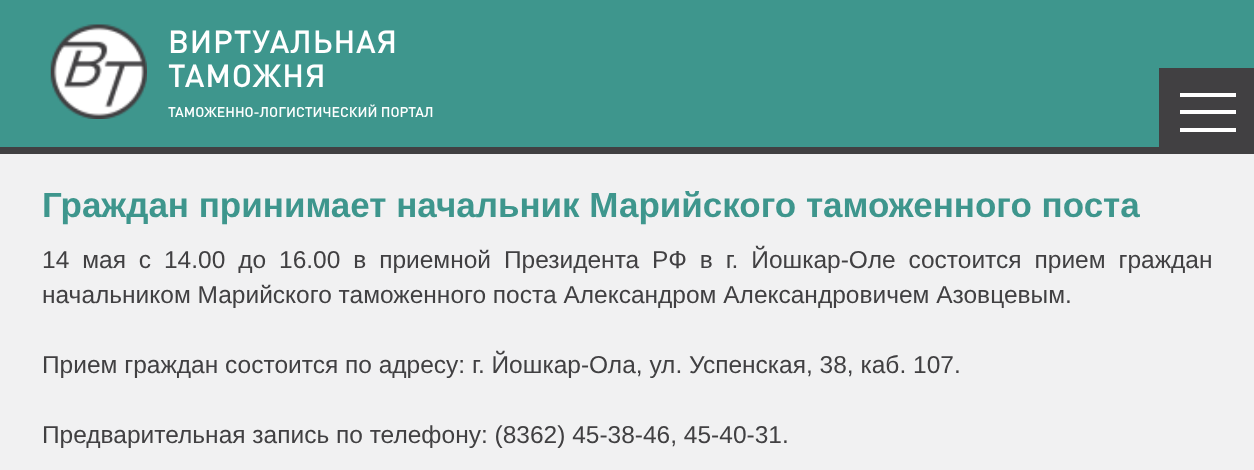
<?xml version="1.0" encoding="UTF-8"?>
<svg xmlns="http://www.w3.org/2000/svg" width="1254" height="470">
    <rect width="100%" height="100%" fill="#F1F1F2"/>
    <rect x="0" y="0" width="1254" height="147" fill="#3E968D"/>
    <rect x="0" y="147" width="1254" height="7" fill="#414042"/>
    <image x="50" y="24" width="97" height="95" href="img_01.png"/>
    <text font-family="DIN" font-size="31.5" font-weight="500" letter-spacing="0.9" fill="#FFFFFF">
        <tspan x="168" y="53">ВИРТУАЛЬНАЯ</tspan>
        <tspan x="168" y="87">ТАМОЖНЯ</tspan>
    </text>
    <text x="168" y="117" font-family="DIN" font-size="14" font-weight="500" fill="#FFFFFF">ТАМОЖЕННО-ЛОГИСТИЧЕСКИЙ ПОРТАЛ</text>
    <rect x="1159" y="68" width="95" height="79" fill="#414042"/>
    <rect x="1180" y="93" width="56" height="4" fill="#FFFFFF"/>
    <rect x="1180" y="110" width="56" height="4" fill="#FFFFFF"/>
    <rect x="1180" y="128" width="56" height="4" fill="#FFFFFF"/>
    <text x="42" y="217" font-family="Liberation Sans" font-size="35" font-weight="700" fill="#3E968D">Граждан принимает начальник Марийского таможенного поста</text>
    <text font-family="Liberation Sans" font-size="24.5" fill="#414042">
        <tspan x="42" y="268" word-spacing="6.1">14 мая с 14.00 до 16.00 в приемной Президента РФ в г. Йошкар-Оле состоится прием граждан</tspan>
        <tspan x="42" y="303">начальником Марийского таможенного поста Александром Александровичем Азовцевым.</tspan>
    </text>
    <text x="42" y="373" font-family="Liberation Sans" font-size="24.5" fill="#414042">Прием граждан состоится по адресу: г. Йошкар-Ола, ул. Успенская, 38, каб. 107.</text>
    <text x="42" y="443" font-family="Liberation Sans" font-size="24.5" fill="#414042">Предварительная запись по телефону: (8362) 45-38-46, 45-40-31.</text>
</svg>
